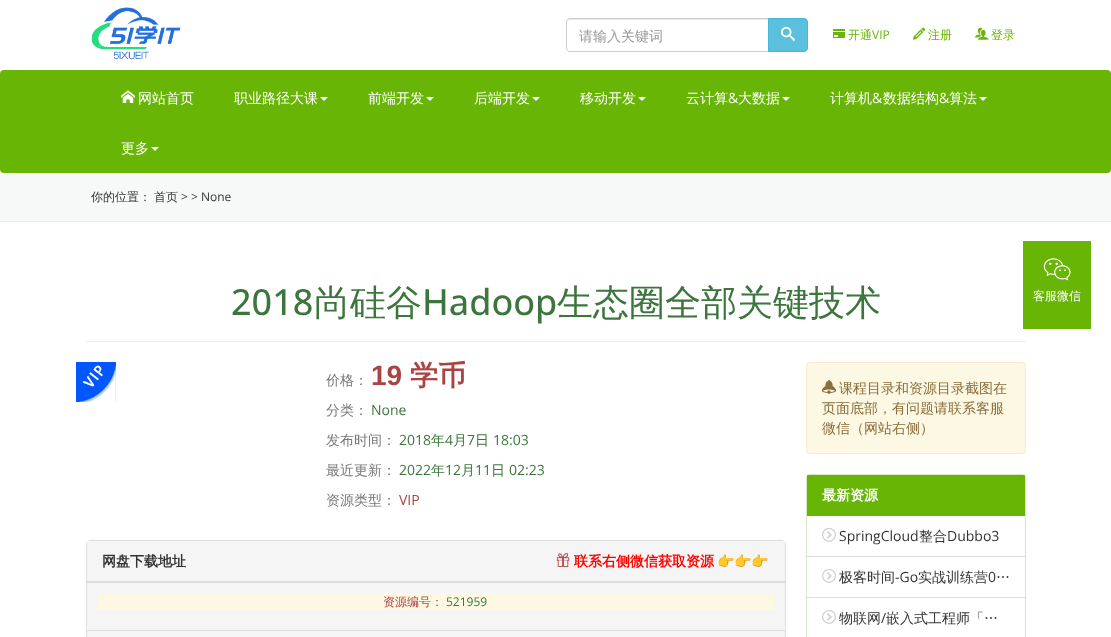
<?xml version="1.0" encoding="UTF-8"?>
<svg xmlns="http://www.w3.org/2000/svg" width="1111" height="637">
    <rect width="100%" height="100%" fill="#FFFFFF"/>
    <image x="86" y="7" width="95" height="53" href="img_01.png"/>
    <path d="M 570 20 H 768 V 19 H 570 C 568 19 567 21 567 23 C 567 21 568 20 570 20 Z" fill="#ECECEC"/>
    <path d="M 570 18.5 H 768.5 V 51.5 H 570 C 568 51.5 566.5 50 566.5 48 V 22 C 566.5 20 568 18.5 570 18.5 Z" fill="none" stroke="#CCCCCC"/>
    <text x="579" y="41" font-family="WenQuanYi Zen Hei" font-size="14" font-weight="500" fill="#999999">请输入关键词</text>
    <path d="M 768.5 18.5 H 804 C 806 18.5 807.5 20 807.5 22 V 48 C 807.5 50 806 51.5 804 51.5 H 768.5 Z" fill="#5BC0DE" stroke="#46B8DA"/>
    <image x="781" y="26" width="14" height="15" href="img_02.png"/>
    <image x="833" y="29" width="12" height="9" href="img_03.png"/>
    <text x="848" y="39" font-family="WenQuanYi Zen Hei" font-size="12" font-weight="500" fill="#69B506">开通</text>
    <text x="872" y="39" font-family="Open Sans" font-size="12" fill="#69B506">VIP</text>
    <image x="913" y="27" width="12" height="13" href="img_04.png"/>
    <text x="928" y="39" font-family="WenQuanYi Zen Hei" font-size="12" font-weight="500" fill="#69B506">注册</text>
    <image x="975" y="27" width="14" height="13" href="img_05.png"/>
    <text x="991" y="39" font-family="WenQuanYi Zen Hei" font-size="12" font-weight="500" fill="#69B506">登录</text>
    <rect x="0" y="70" width="1111" height="103" rx="4" fill="#69B506"/>
    <image x="121" y="90" width="14" height="13" href="img_06.png"/>
    <text x="138" y="103" font-family="WenQuanYi Zen Hei" font-size="14" font-weight="500" fill="#FFFFFF">网站首页</text>
    <text x="234" y="103" font-family="WenQuanYi Zen Hei" font-size="14" font-weight="500" fill="#FFFFFF">职业路径大课</text>
    <path d="M 320 97 H 328 L 324 101 Z" fill="#FFFFFF"/>
    <text x="368" y="103" font-family="WenQuanYi Zen Hei" font-size="14" font-weight="500" fill="#FFFFFF">前端开发</text>
    <path d="M 426 97 H 434 L 430 101 Z" fill="#FFFFFF"/>
    <text x="474" y="103" font-family="WenQuanYi Zen Hei" font-size="14" font-weight="500" fill="#FFFFFF">后端开发</text>
    <path d="M 532 97 H 540 L 536 101 Z" fill="#FFFFFF"/>
    <text x="580" y="103" font-family="WenQuanYi Zen Hei" font-size="14" font-weight="500" fill="#FFFFFF">移动开发</text>
    <path d="M 638 97 H 646 L 642 101 Z" fill="#FFFFFF"/>
    <text x="686" y="103" font-family="WenQuanYi Zen Hei" font-size="14" font-weight="500" fill="#FFFFFF">云计算</text>
    <text x="728" y="103" font-family="Open Sans" font-size="14" fill="#FFFFFF">&amp;</text>
    <text x="738" y="103" font-family="WenQuanYi Zen Hei" font-size="14" font-weight="500" fill="#FFFFFF">大数据</text>
    <path d="M 782 97 H 790 L 786 101 Z" fill="#FFFFFF"/>
    <text x="830" y="103" font-family="WenQuanYi Zen Hei" font-size="14" font-weight="500" fill="#FFFFFF">计算机</text>
    <text x="872" y="103" font-family="Open Sans" font-size="14" fill="#FFFFFF">&amp;</text>
    <text x="883" y="103" font-family="WenQuanYi Zen Hei" font-size="14" font-weight="500" fill="#FFFFFF">数据结构</text>
    <text x="939" y="103" font-family="Open Sans" font-size="14" fill="#FFFFFF">&amp;</text>
    <text x="949" y="103" font-family="WenQuanYi Zen Hei" font-size="14" font-weight="500" fill="#FFFFFF">算法</text>
    <path d="M 979 97 H 987 L 983 101 Z" fill="#FFFFFF"/>
    <text x="121" y="153" font-family="WenQuanYi Zen Hei" font-size="14" font-weight="500" fill="#FFFFFF">更多</text>
    <path d="M 151 147 H 159 L 155 151 Z" fill="#FFFFFF"/>
    <rect x="0" y="173" width="1111" height="48" fill="#F7F8F8"/>
    <rect x="0" y="221" width="1111" height="1" fill="#EAEAEA"/>
    <text x="91" y="201" font-family="WenQuanYi Zen Hei" font-size="12" font-weight="500" fill="#333333">你的位置：</text>
    <text x="154" y="201" font-family="WenQuanYi Zen Hei" font-size="12" font-weight="500" fill="#333333">首页</text>
    <text x="181" y="201" font-family="Open Sans" font-size="12" fill="#333333">&gt; &gt; None</text>
    <rect x="86" y="341" width="940" height="1" fill="#EEEEEE"/>
    <text x="231" y="315" font-family="Open Sans" font-size="36" font-weight="500" fill="#3C763D">2018</text>
    <text x="314" y="315" font-family="WenQuanYi Zen Hei" font-size="36" font-weight="500" fill="#3C763D">尚硅谷</text>
    <text x="422" y="315" font-family="Open Sans" font-size="36" font-weight="500" fill="#3C763D">Hadoop</text>
    <text x="557" y="315" font-family="WenQuanYi Zen Hei" font-size="36" font-weight="500" fill="#3C763D">生态圈全部关键技术</text>
    <image x="76" y="362" width="40" height="40" href="img_07.png"/>
    <text x="326" y="385" font-family="WenQuanYi Zen Hei" font-size="14" font-weight="500" fill="#777777">价格：</text>
    <text x="371" y="385" font-family="Liberation Sans" font-size="28" font-weight="700" fill="#A94442">19</text>
    <text x="410" y="385" font-family="WenQuanYi Zen Hei" font-size="28" font-weight="700" fill="#A94442">学币</text>
    <text x="326" y="415" font-family="WenQuanYi Zen Hei" font-size="14" font-weight="500" fill="#777777">分类：</text>
    <text x="371" y="415" font-family="Open Sans" font-size="14" fill="#3C763D">None</text>
    <text x="326" y="445" font-family="WenQuanYi Zen Hei" font-size="14" font-weight="500" fill="#777777">发布时间：</text>
    <text x="399" y="445" font-family="Open Sans" font-size="14" fill="#3C763D">2018</text>
    <text x="431" y="445" font-family="WenQuanYi Zen Hei" font-size="14" font-weight="500" fill="#3C763D">年</text>
    <text x="445" y="445" font-family="Open Sans" font-size="14" fill="#3C763D">4</text>
    <text x="453" y="445" font-family="WenQuanYi Zen Hei" font-size="14" font-weight="500" fill="#3C763D">月</text>
    <text x="467" y="445" font-family="Open Sans" font-size="14" fill="#3C763D">7</text>
    <text x="475" y="445" font-family="WenQuanYi Zen Hei" font-size="14" font-weight="500" fill="#3C763D">日</text>
    <text x="493" y="445" font-family="Open Sans" font-size="14" fill="#3C763D">18:03</text>
    <text x="326" y="475" font-family="WenQuanYi Zen Hei" font-size="14" font-weight="500" fill="#777777">最近更新：</text>
    <text x="399" y="475" font-family="Open Sans" font-size="14" fill="#3C763D">2022</text>
    <text x="431" y="475" font-family="WenQuanYi Zen Hei" font-size="14" font-weight="500" fill="#3C763D">年</text>
    <text x="445" y="475" font-family="Open Sans" font-size="14" fill="#3C763D">12</text>
    <text x="461" y="475" font-family="WenQuanYi Zen Hei" font-size="14" font-weight="500" fill="#3C763D">月</text>
    <text x="475" y="475" font-family="Open Sans" font-size="14" fill="#3C763D">11</text>
    <text x="491" y="475" font-family="WenQuanYi Zen Hei" font-size="14" font-weight="500" fill="#3C763D">日</text>
    <text x="509" y="475" font-family="Open Sans" font-size="14" fill="#3C763D">02:23</text>
    <text x="326" y="505" font-family="WenQuanYi Zen Hei" font-size="14" font-weight="500" fill="#777777">资源类型：</text>
    <text x="399" y="505" font-family="Open Sans" font-size="14" fill="#A94442">VIP</text>
    <rect x="86.5" y="540.5" width="699" height="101" rx="3.5" fill="none" stroke="#DDDDDD"/>
    <rect x="87" y="541" width="698" height="40" fill="#F5F5F5"/>
    <rect x="87" y="581" width="698" height="1" fill="#DDDDDD"/>
    <text x="102" y="566" font-family="WenQuanYi Zen Hei" font-size="14" font-weight="700" fill="#333333">网盘下载地址</text>
    <image x="556" y="553" width="14" height="14" href="img_08.png"/>
    <text x="574" y="566" font-family="WenQuanYi Zen Hei" font-size="14" font-weight="700" fill="#FF0000">联系右侧微信获取资源</text>
    <text x="717" y="566" font-family="Noto Color Emoji" font-size="14" font-weight="700" fill="#FF0000">👉👉👉</text>
    <path d="M 87 582 H 785 V 627 C 785 628.5 783.5 630 782 630 H 90 C 88.5 630 87 628.5 87 627 Z" fill="#F5F5F5"/>
    <rect x="87" y="582" width="698" height="1" fill="#DDDDDD"/>
    <rect x="97" y="593" width="678" height="17" fill="#FCF8E3"/>
    <text x="383" y="606" font-family="WenQuanYi Zen Hei" font-size="12" font-weight="500" fill="#A94442">资源编号：</text>
    <text x="446" y="606" font-family="Open Sans" font-size="12" fill="#3C763D">521959</text>
    <rect x="87" y="631" width="698" height="6" fill="#F5F5F5"/>
    <rect x="87" y="630" width="698" height="1" fill="#DDDDDD"/>
    <rect x="806.5" y="362.5" width="219" height="91" rx="3.5" fill="#FCF8E3" stroke="#FAEBCC"/>
    <image x="822" y="380" width="14" height="14" href="img_09.png"/>
    <text x="839" y="393" font-family="WenQuanYi Zen Hei" font-size="14" font-weight="500" fill="#8A6D3B">课程目录和资源目录截图在</text>
    <text font-family="WenQuanYi Zen Hei" font-size="14" font-weight="500" fill="#8A6D3B">
        <tspan x="822" y="413">页面底部，有问题请联系客服</tspan>
        <tspan x="822" y="433">微信（网站右侧）</tspan>
    </text>
    <rect x="806.5" y="474.5" width="219" height="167" rx="3.5" fill="none" stroke="#D6E9C6"/>
    <rect x="807" y="475" width="218" height="41" fill="#69B506"/>
    <text x="822" y="500" font-family="WenQuanYi Zen Hei" font-size="14" font-weight="700" fill="#FFFFFF">最新资源</text>
    <rect x="807" y="556" width="218" height="1" fill="#DDDDDD"/>
    <image x="822" y="528" width="14" height="14" href="img_10.png"/>
    <text x="839" y="541" font-family="Open Sans" font-size="14" fill="#333333">SpringCloud</text>
    <text x="919" y="541" font-family="WenQuanYi Zen Hei" font-size="14" font-weight="500" fill="#333333">整合</text>
    <text x="947" y="541" font-family="Open Sans" font-size="14" fill="#333333">Dubbo3</text>
    <rect x="807" y="597" width="218" height="1" fill="#DDDDDD"/>
    <image x="822" y="569" width="14" height="14" href="img_10.png"/>
    <text x="839" y="582" font-family="WenQuanYi Zen Hei" font-size="14" font-weight="500" fill="#333333">极客时间</text>
    <text x="895" y="582" font-family="Open Sans" font-size="14" fill="#333333">-Go</text>
    <text x="918" y="582" font-family="WenQuanYi Zen Hei" font-size="14" font-weight="500" fill="#333333">实战训练营</text>
    <text x="988" y="582" font-family="Open Sans" font-size="14" fill="#333333">0</text>
    <text x="996" y="582" font-family="WenQuanYi Zen Hei" font-size="14" font-weight="500" fill="#333333">…</text>
    <image x="822" y="610" width="14" height="14" href="img_10.png"/>
    <text x="839" y="623" font-family="WenQuanYi Zen Hei" font-size="14" font-weight="500" fill="#333333">物联网</text>
    <text x="881" y="623" font-family="Open Sans" font-size="14" fill="#333333">/</text>
    <text x="886" y="623" font-family="WenQuanYi Zen Hei" font-size="14" font-weight="500" fill="#333333">嵌入式工程师「…</text>
    <rect x="1023" y="241" width="68" height="88" fill="#69B506"/>
    <image x="1043" y="258" width="28" height="23" href="img_11.png"/>
    <text x="1033" y="300" font-family="WenQuanYi Zen Hei" font-size="12" font-weight="500" fill="#FFFFFF">客服微信</text>
</svg>
